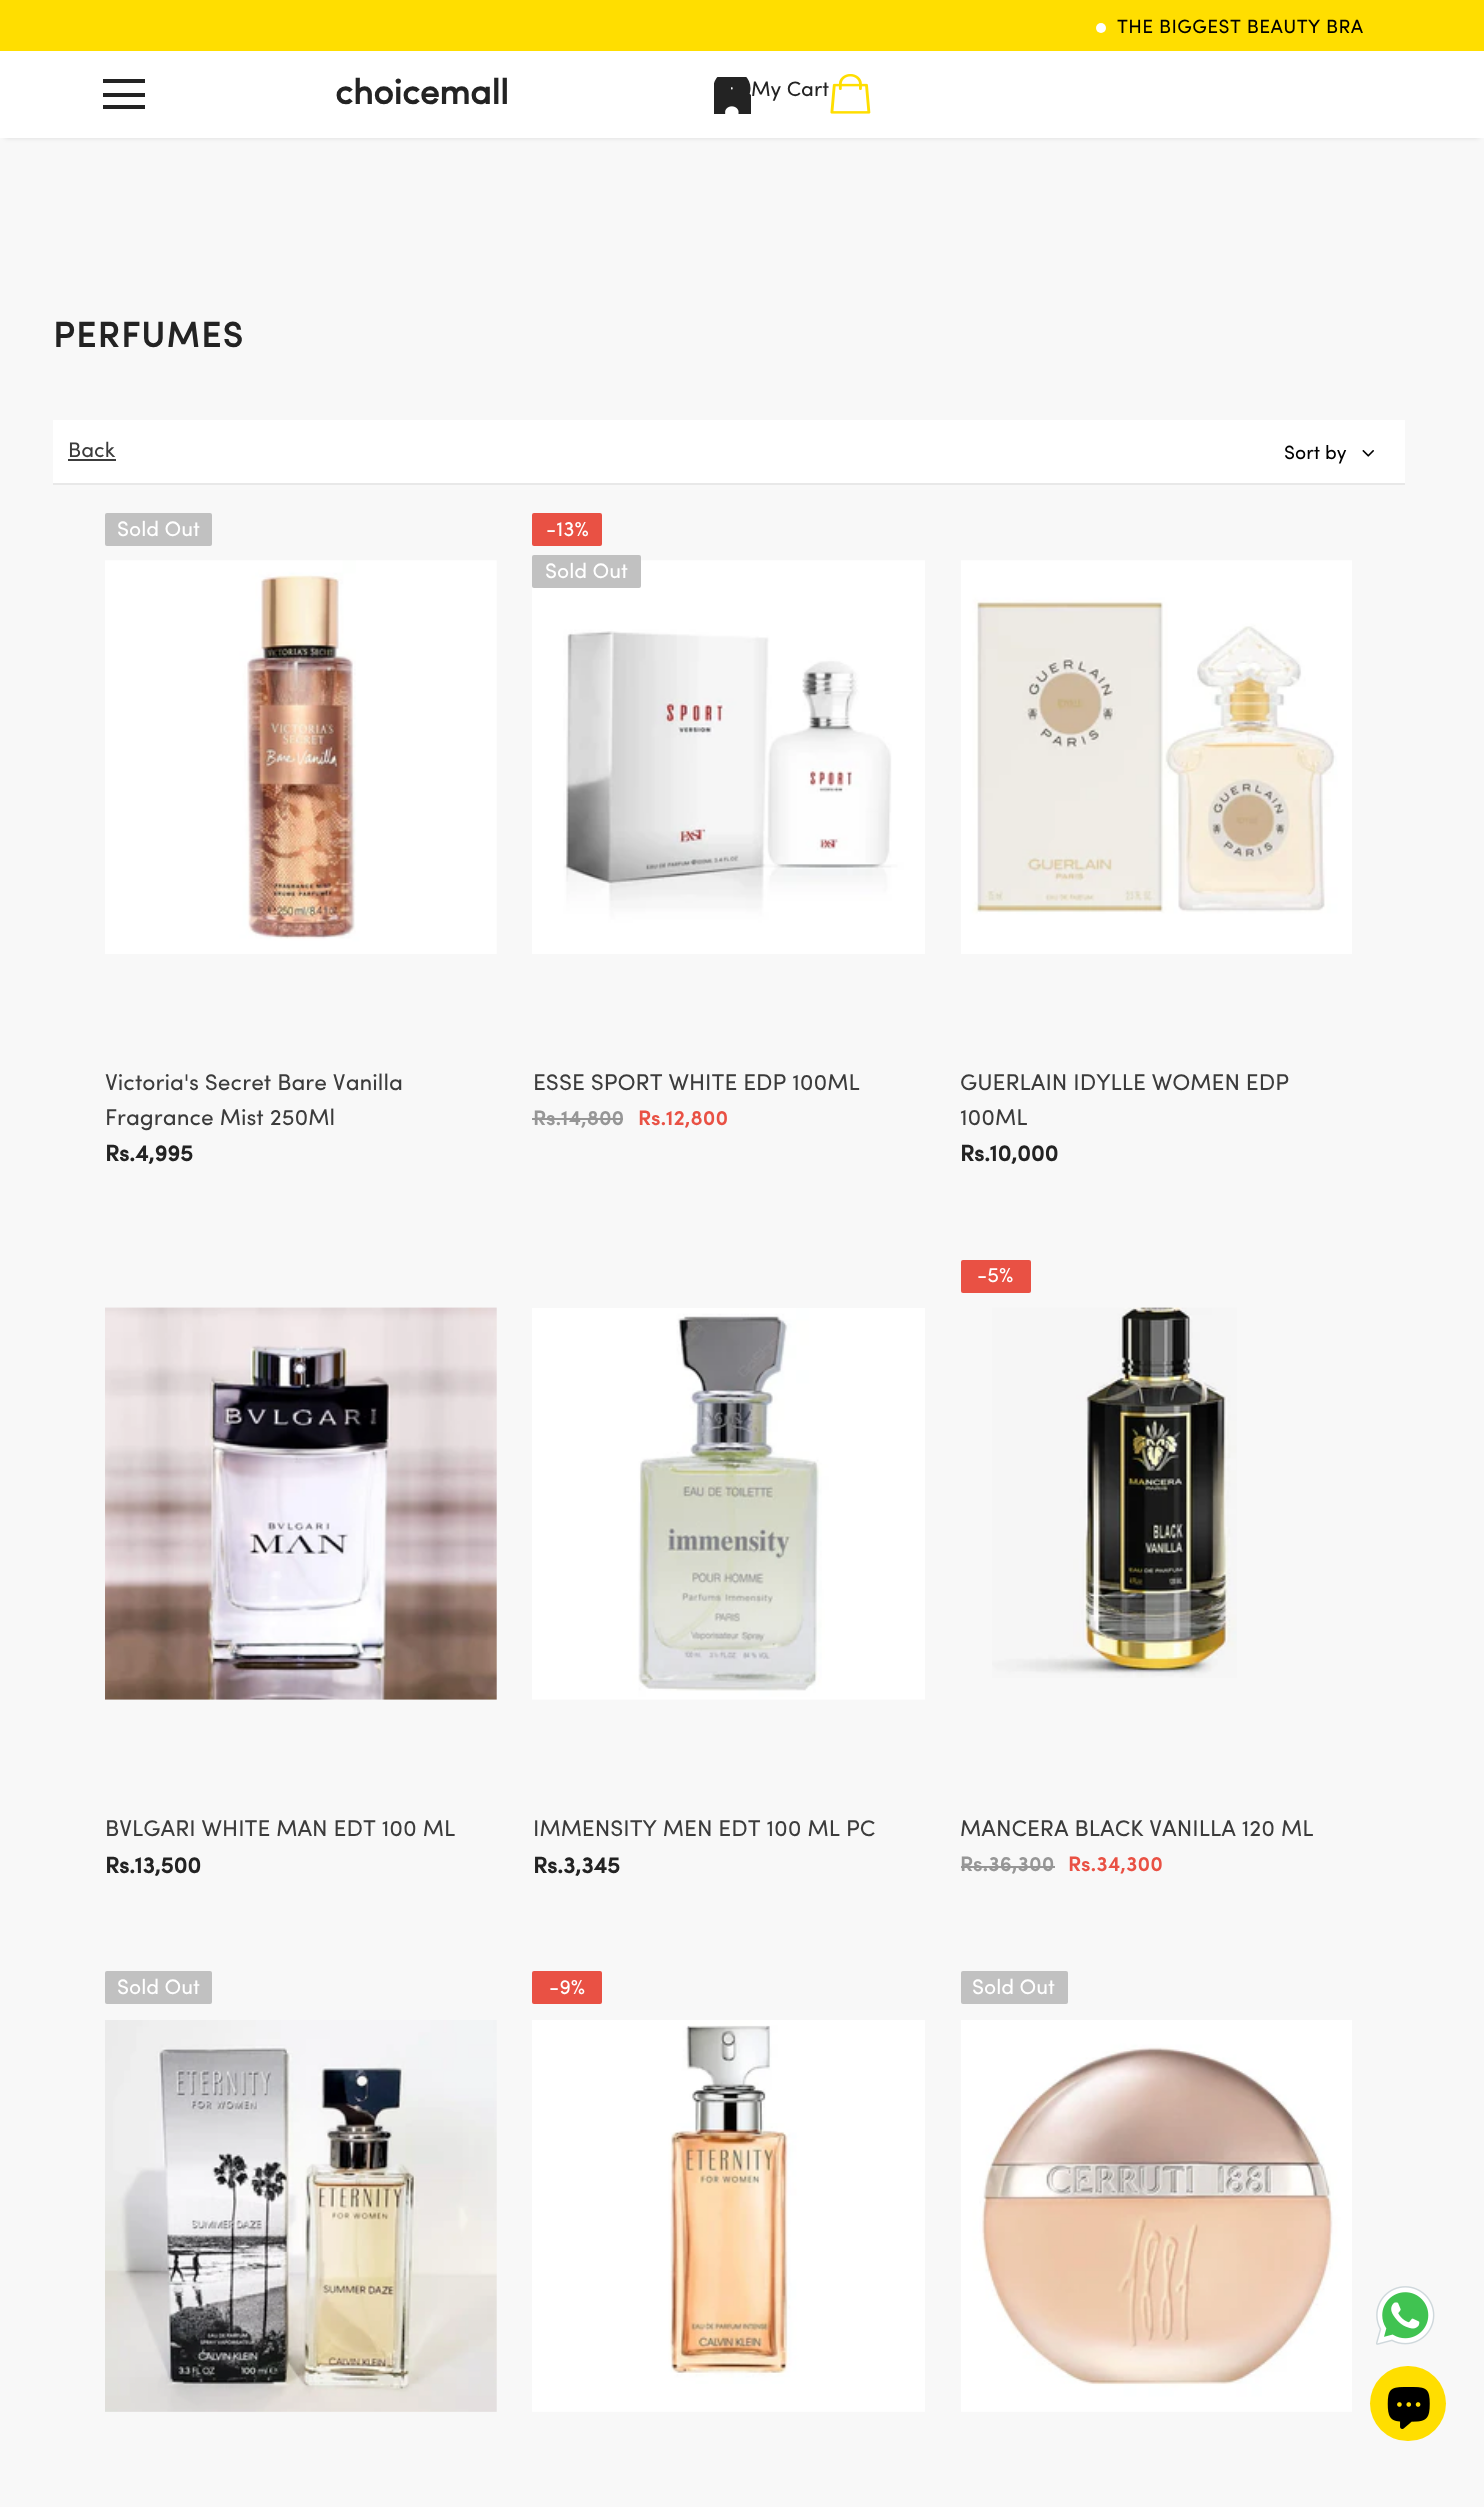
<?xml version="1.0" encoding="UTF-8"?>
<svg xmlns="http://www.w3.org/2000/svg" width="1484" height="2507">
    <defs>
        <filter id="blur1" x="-50%" y="-200%" width="200%" height="500%"><feGaussianBlur stdDeviation="2.5"/></filter>
    </defs>
    <rect width="100%" height="100%" fill="#F8F8F8"/>
    <rect x="0" y="0" width="1484" height="51" fill="#FFDE00"/>
    <circle cx="1101" cy="28" r="5" fill="#FFFFFF"/>
    <text x="1117" y="33" font-family="Sofia" font-size="19.25" letter-spacing="0.4" fill="#000000">THE BIGGEST BEAUTY BRA</text>
    <rect x="5" y="61" width="1474" height="77" fill="#000000" fill-opacity="0.12" filter="url(#blur1)"/>
    <rect x="0" y="51" width="1484" height="87" fill="#FFFFFF"/>
    <rect x="103" y="79" width="42" height="4" fill="#232323"/>
    <rect x="103" y="93" width="42" height="4" fill="#232323"/>
    <rect x="103" y="105" width="42" height="4" fill="#232323"/>
    <text x="335" y="104" font-family="Sofia" font-size="35" font-weight="700" fill="#232323">choicemall</text>
    <image x="714" y="77" width="37" height="37" href="img_01.png"/>
    <text x="751" y="96" font-family="Sofia" font-size="21" fill="#232323">My Cart</text>
    <image x="830" y="74" width="41" height="40" href="img_02.png"/>
    <text x="53" y="347" font-family="Sofia" font-size="35" font-weight="700" letter-spacing="1.75" fill="#232323">PERFUMES</text>
    <rect x="53" y="420" width="1352" height="63" fill="#FFFFFF"/>
    <rect x="53" y="483" width="1352" height="2" fill="#E8E8E8"/>
    <text x="68" y="457" font-family="Sofia" font-size="21" fill="#3C3C3C">Back</text>
    <rect x="68" y="459" width="48" height="2" fill="#3C3C3C"/>
    <text x="1284" y="459" font-family="Sofia" font-size="19.25" fill="#000000">Sort by</text>
    <image x="1362" y="450" width="12" height="7" href="img_03.png"/>
    <rect x="105" y="513" width="107" height="33" rx="2" fill="#C1C1C1"/>
    <text x="117" y="536" font-family="Sofia" font-size="21" fill="#FFFFFF">Sold Out</text>
    <image x="105" y="560" width="392" height="394" href="img_04.png"/>
    <text font-family="Sofia" font-size="22.75" fill="#3C3C3C">
        <tspan x="105" y="1090">Victoria's Secret Bare Vanilla</tspan>
        <tspan x="105" y="1125">Fragrance Mist 250Ml</tspan>
    </text>
    <text x="105" y="1161" font-family="'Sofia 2'" font-size="22.75" font-weight="700" fill="#232323">Rs.4,995</text>
    <rect x="532" y="513" width="70" height="33" rx="2" fill="#E95144"/>
    <text x="546" y="536" font-family="Sofia" font-size="21" fill="#FFFFFF">-13%</text>
    <image x="532" y="560" width="393" height="394" href="img_05.png"/>
    <rect x="532" y="555" width="109" height="33" rx="2" fill="#C1C1C1"/>
    <text x="545" y="578" font-family="Sofia" font-size="21" fill="#FFFFFF">Sold Out</text>
    <text x="533" y="1090" font-family="Sofia" font-size="22.75" fill="#3C3C3C">ESSE SPORT WHITE EDP 100ML</text>
    <text x="533" y="1125" font-family="Sofia" font-size="21" font-weight="600" fill="#969696">Rs.14,800</text>
    <rect x="532" y="1118" width="91" height="2" fill="#969696"/>
    <text x="638" y="1125" font-family="Sofia" font-size="21" font-weight="600" fill="#E95144">Rs.12,800</text>
    <image x="961" y="560" width="391" height="394" href="img_06.png"/>
    <text font-family="Sofia" font-size="22.75" fill="#3C3C3C">
        <tspan x="960" y="1090">GUERLAIN IDYLLE WOMEN EDP</tspan>
        <tspan x="960" y="1125">100ML</tspan>
    </text>
    <text x="960" y="1161" font-family="'Sofia 2'" font-size="22.75" font-weight="700" fill="#232323">Rs.10,000</text>
    <image x="105" y="1307" width="392" height="393" href="img_07.png"/>
    <text x="105" y="1836" font-family="Sofia" font-size="22.75" fill="#3C3C3C">BVLGARI WHITE MAN EDT 100 ML</text>
    <text x="105" y="1873" font-family="'Sofia 2'" font-size="22.75" font-weight="700" fill="#232323">Rs.13,500</text>
    <image x="532" y="1308" width="393" height="392" href="img_08.png"/>
    <text x="533" y="1836" font-family="Sofia" font-size="22.75" fill="#3C3C3C">IMMENSITY MEN EDT 100 ML PC</text>
    <text x="533" y="1873" font-family="'Sofia 2'" font-size="22.75" font-weight="700" fill="#232323">Rs.3,345</text>
    <rect x="961" y="1260" width="70" height="33" rx="2" fill="#E95144"/>
    <text x="977" y="1282" font-family="Sofia" font-size="21" fill="#FFFFFF">-5%</text>
    <image x="992" y="1307" width="245" height="371" href="img_09.png"/>
    <text x="960" y="1836" font-family="Sofia" font-size="22.75" fill="#3C3C3C">MANCERA BLACK VANILLA 120 ML</text>
    <text x="960" y="1871" font-family="Sofia" font-size="21" font-weight="600" fill="#969696">Rs.36,300</text>
    <rect x="961" y="1866" width="94" height="2" fill="#969696"/>
    <text x="1068" y="1871" font-family="Sofia" font-size="21" font-weight="600" fill="#E95144">Rs.34,300</text>
    <rect x="105" y="1971" width="107" height="33" rx="2" fill="#C1C1C1"/>
    <text x="117" y="1994" font-family="Sofia" font-size="21" fill="#FFFFFF">Sold Out</text>
    <image x="105" y="2020" width="392" height="392" href="img_10.png"/>
    <rect x="532" y="1971" width="70" height="33" rx="2" fill="#E95144"/>
    <text x="549" y="1994" font-family="Sofia" font-size="21" fill="#FFFFFF">-9%</text>
    <image x="532" y="2020" width="393" height="392" href="img_11.png"/>
    <rect x="961" y="1971" width="107" height="33" rx="2" fill="#C1C1C1"/>
    <text x="972" y="1994" font-family="Sofia" font-size="21" fill="#FFFFFF">Sold Out</text>
    <image x="961" y="2020" width="391" height="392" href="img_12.png"/>
    <image x="1376" y="2286" width="59" height="59" href="img_13.png"/>
    <rect x="1370" y="2366" width="76" height="75" rx="37.5" fill="#FFDE00"/>
    <image x="1387" y="2387" width="43" height="42" href="img_14.png"/>
</svg>
